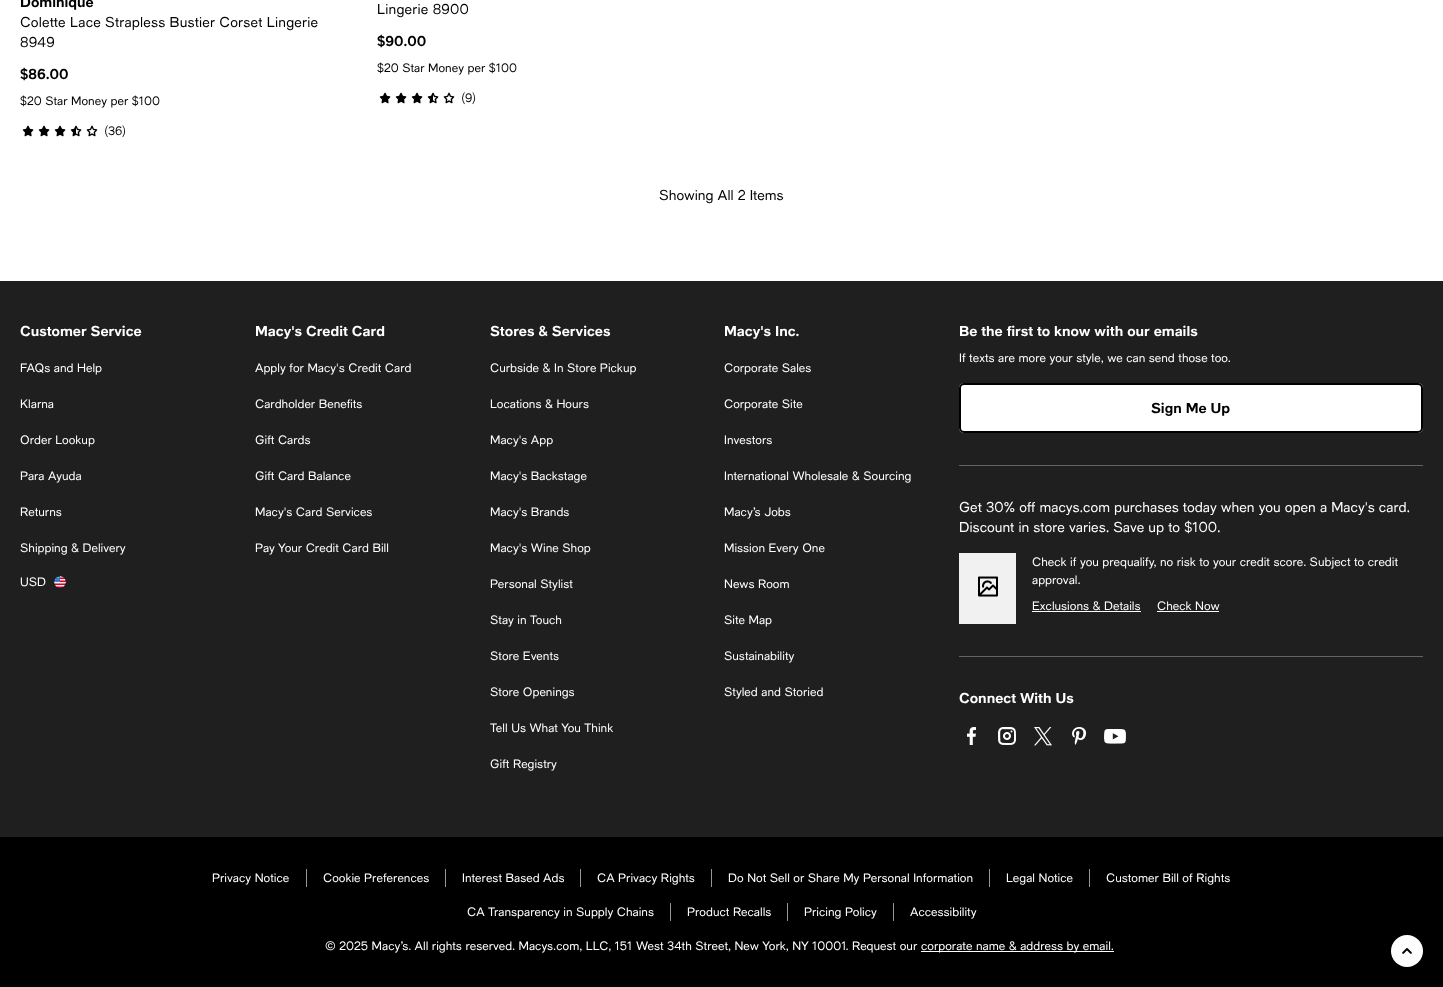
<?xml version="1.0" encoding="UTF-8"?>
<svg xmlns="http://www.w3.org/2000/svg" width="1443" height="987">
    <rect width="100%" height="100%" fill="#FFFFFF"/>
    <text x="20" y="7" font-family="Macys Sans" font-size="14" font-weight="700" fill="#000000">Dominique</text>
    <text font-family="Macys Sans" font-size="14" letter-spacing="0.15" fill="#000000">
        <tspan x="20" y="27">Colette Lace Strapless Bustier Corset Lingerie</tspan>
        <tspan x="20" y="47">8949</tspan>
    </text>
    <text x="20" y="79" font-family="Macys Sans" font-size="14" font-weight="700" fill="#000000">$86.00</text>
    <text x="20" y="105" font-family="Macys Sans" font-size="12" fill="#000000">$20 Star Money per $100</text>
    <image x="22" y="125" width="12" height="12" href="img_01.png"/>
    <image x="38" y="125" width="12" height="12" href="img_01.png"/>
    <image x="54" y="125" width="12" height="12" href="img_01.png"/>
    <image x="70" y="125" width="12" height="12" href="img_02.png"/>
    <image x="86" y="125" width="12" height="12" href="img_03.png"/>
    <text x="104" y="135" font-family="Macys Sans" font-size="12" fill="#000000">(36)</text>
    <text x="377" y="14" font-family="Macys Sans" font-size="14" letter-spacing="0.15" fill="#000000">Lingerie 8900</text>
    <text x="377" y="46" font-family="Macys Sans" font-size="14" font-weight="700" fill="#000000">$90.00</text>
    <text x="377" y="72" font-family="Macys Sans" font-size="12" fill="#000000">$20 Star Money per $100</text>
    <image x="379" y="92" width="12" height="12" href="img_01.png"/>
    <image x="395" y="92" width="12" height="12" href="img_01.png"/>
    <image x="411" y="92" width="12" height="12" href="img_01.png"/>
    <image x="427" y="92" width="12" height="12" href="img_02.png"/>
    <image x="443" y="92" width="12" height="12" href="img_03.png"/>
    <text x="461" y="102" font-family="Macys Sans" font-size="12" fill="#000000">(9)</text>
    <text x="659" y="200" font-family="Macys Sans" font-size="14" fill="#000000">Showing All 2 Items</text>
    <rect x="0" y="837" width="1443" height="150" fill="#000000"/>
    <circle cx="1407" cy="951" r="16" fill="#FFFFFF"/>
    <image x="1402" y="948" width="10" height="6" href="img_04.png"/>
    <rect x="0" y="281" width="1443" height="556" fill="#1F1F1F"/>
    <text x="20" y="336" font-family="Macys Sans" font-size="14" font-weight="700" fill="#FFFFFF">Customer Service</text>
    <text x="20" y="372" font-family="Macys Sans" font-size="12" fill="#FFFFFF">FAQs and Help</text>
    <text x="20" y="408" font-family="Macys Sans" font-size="12" fill="#FFFFFF">Klarna</text>
    <text x="20" y="444" font-family="Macys Sans" font-size="12" fill="#FFFFFF">Order Lookup</text>
    <text x="20" y="480" font-family="Macys Sans" font-size="12" fill="#FFFFFF">Para Ayuda</text>
    <text x="20" y="516" font-family="Macys Sans" font-size="12" fill="#FFFFFF">Returns</text>
    <text x="20" y="552" font-family="Macys Sans" font-size="12" fill="#FFFFFF">Shipping &amp; Delivery</text>
    <text x="20" y="586" font-family="Macys Sans" font-size="12" fill="#FFFFFF">USD</text>
    <image x="54" y="576" width="12" height="12" href="img_05.png"/>
    <text x="255" y="336" font-family="Macys Sans" font-size="14" font-weight="700" fill="#FFFFFF">Macy's Credit Card</text>
    <text x="255" y="372" font-family="Macys Sans" font-size="12" fill="#FFFFFF">Apply for Macy's Credit Card</text>
    <text x="255" y="408" font-family="Macys Sans" font-size="12" fill="#FFFFFF">Cardholder Benefits</text>
    <text x="255" y="444" font-family="Macys Sans" font-size="12" fill="#FFFFFF">Gift Cards</text>
    <text x="255" y="480" font-family="Macys Sans" font-size="12" fill="#FFFFFF">Gift Card Balance</text>
    <text x="255" y="516" font-family="Macys Sans" font-size="12" fill="#FFFFFF">Macy's Card Services</text>
    <text x="255" y="552" font-family="Macys Sans" font-size="12" fill="#FFFFFF">Pay Your Credit Card Bill</text>
    <text x="490" y="336" font-family="Macys Sans" font-size="14" font-weight="700" fill="#FFFFFF">Stores &amp; Services</text>
    <text x="490" y="372" font-family="Macys Sans" font-size="12" fill="#FFFFFF">Curbside &amp; In Store Pickup</text>
    <text x="490" y="408" font-family="Macys Sans" font-size="12" fill="#FFFFFF">Locations &amp; Hours</text>
    <text x="490" y="444" font-family="Macys Sans" font-size="12" fill="#FFFFFF">Macy's App</text>
    <text x="490" y="480" font-family="Macys Sans" font-size="12" fill="#FFFFFF">Macy's Backstage</text>
    <text x="490" y="516" font-family="Macys Sans" font-size="12" fill="#FFFFFF">Macy's Brands</text>
    <text x="490" y="552" font-family="Macys Sans" font-size="12" fill="#FFFFFF">Macy's Wine Shop</text>
    <text x="490" y="588" font-family="Macys Sans" font-size="12" fill="#FFFFFF">Personal Stylist</text>
    <text x="490" y="624" font-family="Macys Sans" font-size="12" fill="#FFFFFF">Stay in Touch</text>
    <text x="490" y="660" font-family="Macys Sans" font-size="12" fill="#FFFFFF">Store Events</text>
    <text x="490" y="696" font-family="Macys Sans" font-size="12" fill="#FFFFFF">Store Openings</text>
    <text x="490" y="732" font-family="Macys Sans" font-size="12" fill="#FFFFFF">Tell Us What You Think</text>
    <text x="490" y="768" font-family="Macys Sans" font-size="12" fill="#FFFFFF">Gift Registry</text>
    <text x="724" y="336" font-family="Macys Sans" font-size="14" font-weight="700" fill="#FFFFFF">Macy's Inc.</text>
    <text x="724" y="372" font-family="Macys Sans" font-size="12" fill="#FFFFFF">Corporate Sales</text>
    <text x="724" y="408" font-family="Macys Sans" font-size="12" fill="#FFFFFF">Corporate Site</text>
    <text x="724" y="444" font-family="Macys Sans" font-size="12" fill="#FFFFFF">Investors</text>
    <text x="724" y="480" font-family="Macys Sans" font-size="12" fill="#FFFFFF">International Wholesale &amp; Sourcing</text>
    <text x="724" y="516" font-family="Macys Sans" font-size="12" fill="#FFFFFF">Macy’s Jobs</text>
    <text x="724" y="552" font-family="Macys Sans" font-size="12" fill="#FFFFFF">Mission Every One</text>
    <text x="724" y="588" font-family="Macys Sans" font-size="12" fill="#FFFFFF">News Room</text>
    <text x="724" y="624" font-family="Macys Sans" font-size="12" fill="#FFFFFF">Site Map</text>
    <text x="724" y="660" font-family="Macys Sans" font-size="12" fill="#FFFFFF">Sustainability</text>
    <text x="724" y="696" font-family="Macys Sans" font-size="12" fill="#FFFFFF">Styled and Storied</text>
    <text x="959" y="336" font-family="Macys Sans" font-size="14" font-weight="700" fill="#FFFFFF">Be the first to know with our emails</text>
    <text x="959" y="362" font-family="Macys Sans" font-size="12" fill="#FFFFFF">If texts are more your style, we can send those too.</text>
    <rect x="959" y="383" width="464" height="50" rx="5" fill="#FFFFFF"/>
    <rect x="960" y="384" width="462" height="48" rx="4" fill="none" stroke="#000000" stroke-width="2"/>
    <text x="1151" y="413" font-family="Macys Sans" font-size="14" font-weight="700" fill="#000000">Sign Me Up</text>
    <rect x="959" y="465" width="464" height="1" fill="#626369"/>
    <text font-family="Macys Sans" font-size="14" fill="#FFFFFF">
        <tspan x="959" y="512">Get 30% off macys.com purchases today when you open a Macy's card.</tspan>
        <tspan x="959" y="532">Discount in store varies. Save up to $100.</tspan>
    </text>
    <rect x="959" y="553" width="57" height="71" fill="#F1F1F1"/>
    <image x="978" y="576" width="20" height="21" href="img_06.png"/>
    <text font-family="Macys Sans" font-size="12" fill="#FFFFFF">
        <tspan x="1032" y="566">Check if you prequalify, no risk to your credit score. Subject to credit</tspan>
        <tspan x="1032" y="584">approval.</tspan>
    </text>
    <text x="1032" y="610" font-family="Macys Sans" font-size="12" fill="#FFFFFF">Exclusions &amp; Details</text>
    <rect x="1032" y="611" width="109" height="1" fill="#FFFFFF"/>
    <text x="1157" y="610" font-family="Macys Sans" font-size="12" fill="#FFFFFF">Check Now</text>
    <rect x="1157" y="611" width="62" height="1" fill="#FFFFFF"/>
    <rect x="959" y="656" width="464" height="1" fill="#626369"/>
    <text x="959" y="703" font-family="Macys Sans" font-size="14" font-weight="700" fill="#FFFFFF">Connect With Us</text>
    <image x="967" y="727" width="9" height="18" href="img_07.png"/>
    <image x="998" y="727" width="18" height="18" href="img_08.png"/>
    <image x="1034" y="727" width="18" height="19" href="img_09.png"/>
    <image x="1072" y="727" width="15" height="18" href="img_10.png"/>
    <image x="1104" y="729" width="22" height="15" href="img_11.png"/>
    <text x="212" y="882" font-family="Macys Sans" font-size="12" fill="#FFFFFF">Privacy Notice</text>
    <rect x="306" y="869" width="1" height="18" fill="#959499"/>
    <text x="323" y="882" font-family="Macys Sans" font-size="12" fill="#FFFFFF">Cookie Preferences</text>
    <rect x="445" y="869" width="1" height="18" fill="#959499"/>
    <text x="462" y="882" font-family="Macys Sans" font-size="12" fill="#FFFFFF">Interest Based Ads</text>
    <rect x="580" y="869" width="1" height="18" fill="#959499"/>
    <text x="597" y="882" font-family="Macys Sans" font-size="12" fill="#FFFFFF">CA Privacy Rights</text>
    <rect x="711" y="869" width="1" height="18" fill="#959499"/>
    <text x="728" y="882" font-family="Macys Sans" font-size="12" fill="#FFFFFF">Do Not Sell or Share My Personal Information</text>
    <rect x="989" y="869" width="1" height="18" fill="#959499"/>
    <text x="1006" y="882" font-family="Macys Sans" font-size="12" fill="#FFFFFF">Legal Notice</text>
    <rect x="1089" y="869" width="1" height="18" fill="#959499"/>
    <text x="1106" y="882" font-family="Macys Sans" font-size="12" fill="#FFFFFF">Customer Bill of Rights</text>
    <text x="467" y="916" font-family="Macys Sans" font-size="12" fill="#FFFFFF">CA Transparency in Supply Chains</text>
    <rect x="670" y="903" width="1" height="18" fill="#959499"/>
    <text x="687" y="916" font-family="Macys Sans" font-size="12" fill="#FFFFFF">Product Recalls</text>
    <rect x="787" y="903" width="1" height="18" fill="#959499"/>
    <text x="804" y="916" font-family="Macys Sans" font-size="12" fill="#FFFFFF">Pricing Policy</text>
    <rect x="893" y="903" width="1" height="18" fill="#959499"/>
    <text x="910" y="916" font-family="Macys Sans" font-size="12" fill="#FFFFFF">Accessibility</text>
    <text x="325" y="950" font-family="Macys Sans" font-size="12" fill="#FFFFFF">© 2025 Macy’s. All rights reserved. Macys.com, LLC, 151 West 34th Street, New York, NY 10001. Request our</text>
    <rect x="921" y="951" width="193" height="1" fill="#FFFFFF"/>
    <text x="921" y="950" font-family="Macys Sans" font-size="12" fill="#FFFFFF">corporate name &amp; address by email.</text>
</svg>
